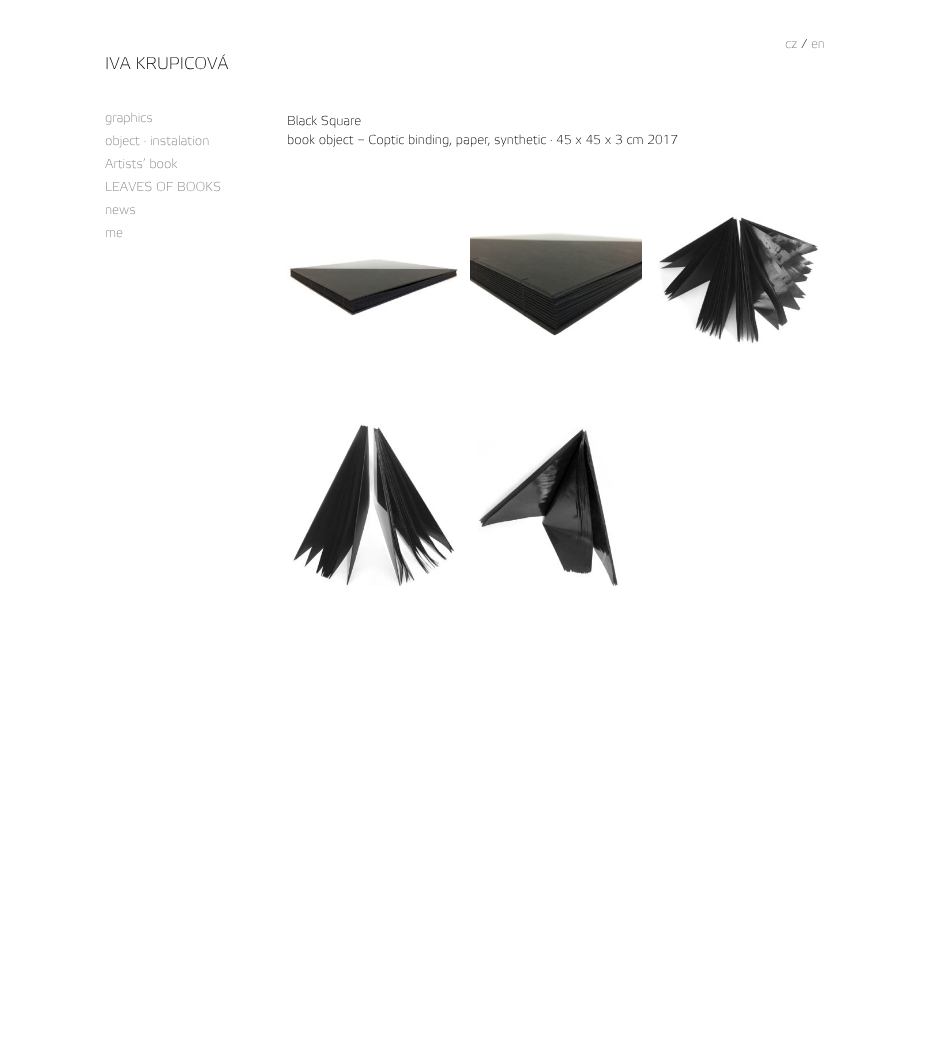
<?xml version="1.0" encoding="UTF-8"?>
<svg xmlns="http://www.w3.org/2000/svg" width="929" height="1040">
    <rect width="100%" height="100%" fill="#FFFFFF"/>
    <text x="785" y="48" font-family="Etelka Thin" font-size="13" font-weight="100" fill="#868686">cz</text>
    <text x="801" y="48" font-family="Etelka Thin" font-size="13" font-weight="100" fill="#000000">/</text>
    <text x="811" y="48" font-family="Etelka Thin" font-size="13" font-weight="100" fill="#868686">en</text>
    <text x="105" y="69" font-family="Etelka Thin" font-size="17" font-weight="100" fill="#000000">IVA KRUPICOVÁ</text>
    <text font-family="Etelka Thin" font-size="13" font-weight="100" fill="#868686">
        <tspan x="105" y="122">graphics</tspan>
        <tspan x="105" y="145">object · instalation</tspan>
        <tspan x="105" y="168">Artists’ book</tspan>
        <tspan x="105" y="191">LEAVES OF BOOKS</tspan>
        <tspan x="105" y="214">news</tspan>
        <tspan x="105" y="237">me</tspan>
    </text>
    <text font-family="Etelka Thin" font-size="13" font-weight="100" fill="#000000">
        <tspan x="287" y="125">Black Square</tspan>
        <tspan x="287" y="144">book object – Coptic binding, paper, synthetic · 45 x 45 x 3 cm 2017</tspan>
    </text>
    <image x="287" y="259" width="171" height="57" href="img_01.png"/>
    <image x="470" y="232" width="172" height="104" href="img_02.png"/>
    <image x="658" y="215" width="160" height="129" href="img_03.png"/>
    <image x="292" y="422" width="163" height="164" href="img_04.png"/>
    <image x="478" y="426" width="140" height="161" href="img_05.png"/>
</svg>
